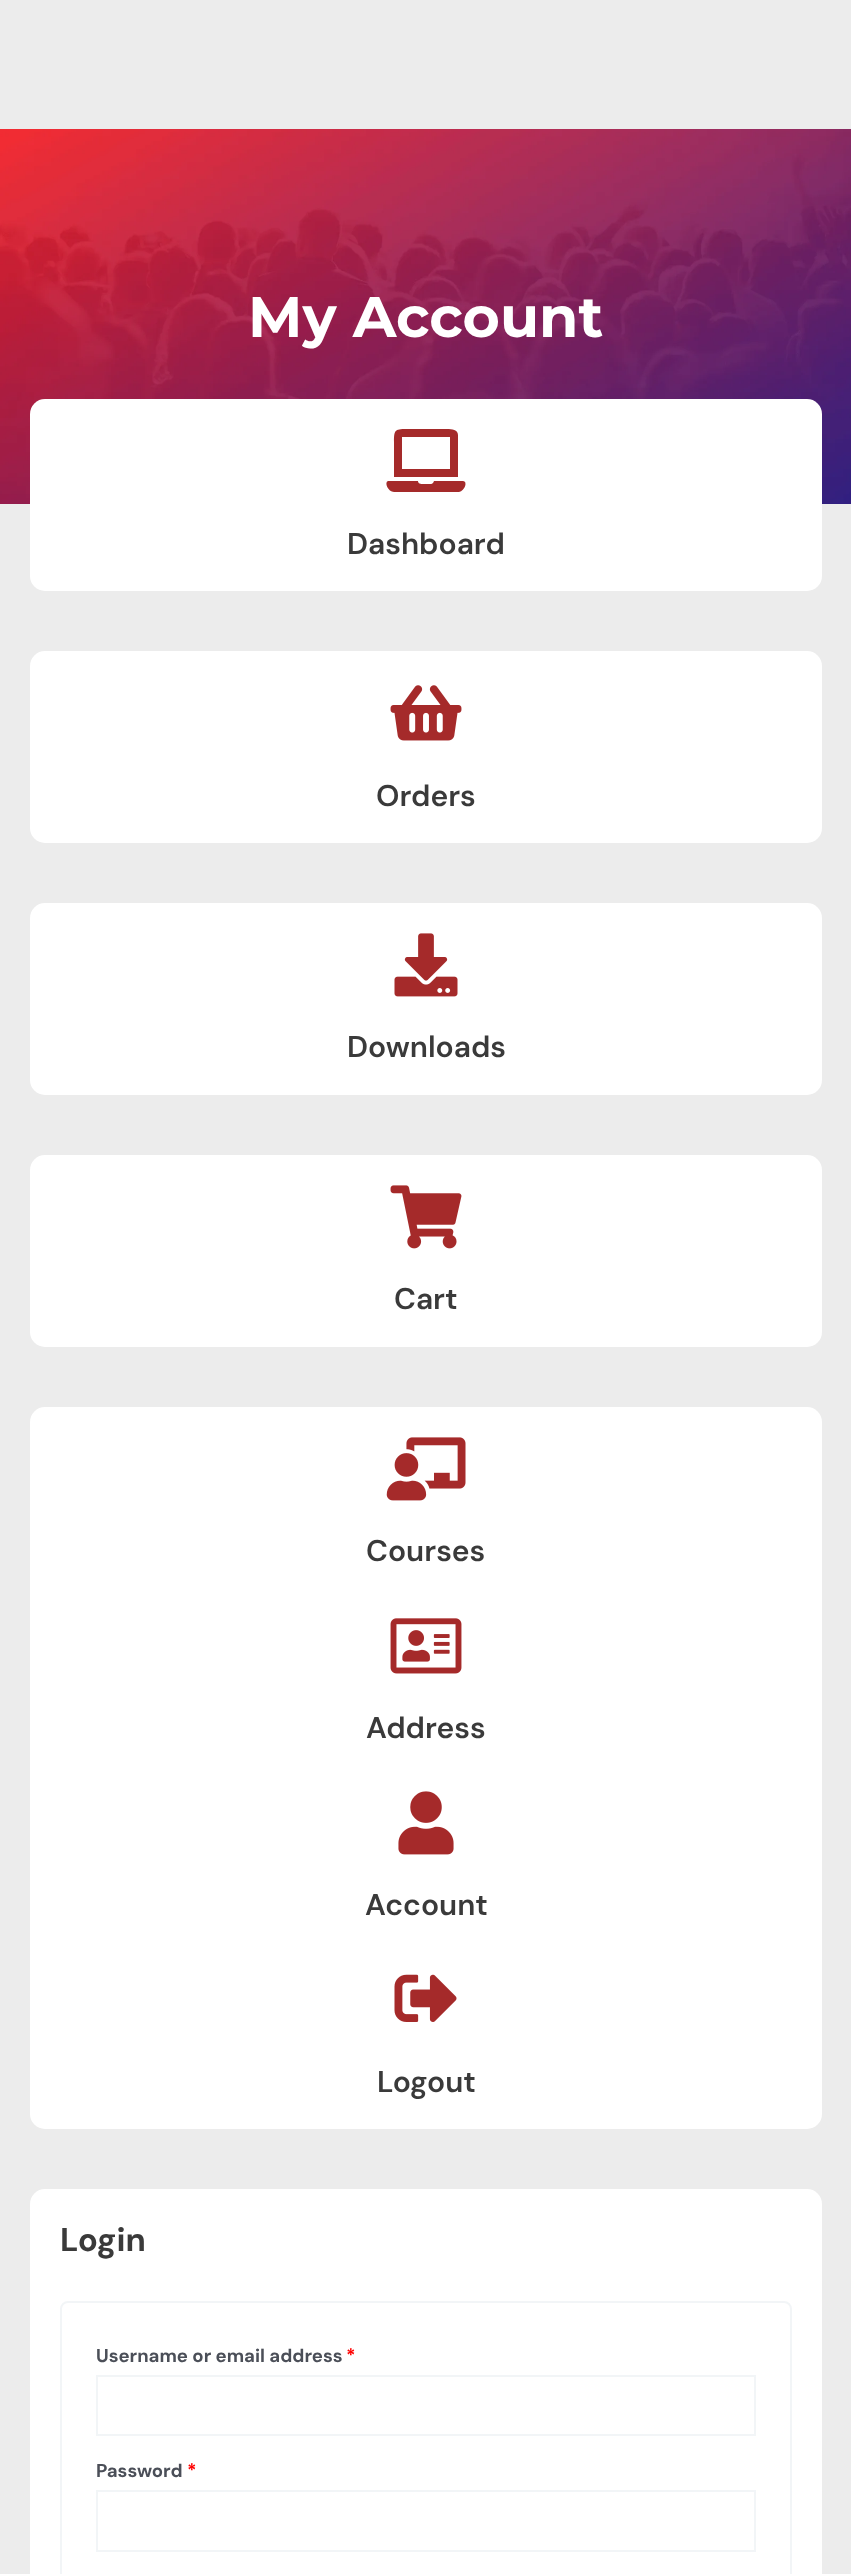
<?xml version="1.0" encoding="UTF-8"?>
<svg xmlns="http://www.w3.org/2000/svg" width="851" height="2574">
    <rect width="100%" height="100%" fill="#ECECEC"/>
    <image x="0" y="129" width="851" height="375" href="img_01.png"/>
    <text x="248" y="337" font-family="Montserrat" font-size="57" font-weight="700" fill="#FFFFFF">My Account</text>
    <rect x="30" y="399" width="792" height="192" rx="15" fill="#FFFFFF"/>
    <path d="M 463 481 C 468 481 465 491 459 492 H 394 C 388 492 384 482 388 481 H 418 C 418 485 424 484 427 484 C 430 484 433 485 434 481 Z M 458 435 V 477 H 394 V 442 C 394 429 395 429 409 429 H 443 C 448 429 458 428 458 435 Z M 450 469 V 437 H 402 V 469 Z" fill="#A52A2A"/>
    <text x="347" y="554" font-family="DM Sans" font-size="30" font-weight="600" fill="#3A3A3A">Dashboard</text>
    <rect x="30" y="651" width="792" height="192" rx="15" fill="#FFFFFF"/>
    <image x="390" y="685" width="72" height="56" href="img_02.png"/>
    <text x="376" y="806" font-family="DM Sans" font-size="30" font-weight="600" fill="#3A3A3A">Orders</text>
    <rect x="30" y="903" width="792" height="192" rx="15" fill="#FFFFFF"/>
    <image x="394" y="933" width="64" height="64" href="img_03.png"/>
    <text x="347" y="1057" font-family="DM Sans" font-size="30" font-weight="600" fill="#3A3A3A">Downloads</text>
    <rect x="30" y="1155" width="792" height="192" rx="15" fill="#FFFFFF"/>
    <image x="390" y="1185" width="72" height="64" href="img_04.png"/>
    <text x="394" y="1309" font-family="DM Sans" font-size="30" font-weight="600" fill="#3A3A3A">Cart</text>
    <rect x="30" y="1407" width="792" height="722" rx="15" fill="#FFFFFF"/>
    <image x="386" y="1437" width="80" height="64" href="img_05.png"/>
    <text x="366" y="1561" font-family="DM Sans" font-size="30" font-weight="600" fill="#3A3A3A">Courses</text>
    <image x="390" y="1618" width="72" height="56" href="img_06.png"/>
    <text x="366" y="1738" font-family="DM Sans" font-size="30" font-weight="600" fill="#3A3A3A">Address</text>
    <image x="398" y="1791" width="56" height="64" href="img_07.png"/>
    <text x="365" y="1915" font-family="DM Sans" font-size="30" font-weight="600" fill="#3A3A3A">Account</text>
    <image x="394" y="1974" width="63" height="48" href="img_08.png"/>
    <text x="377" y="2092" font-family="DM Sans" font-size="30" font-weight="600" fill="#3A3A3A">Logout</text>
    <rect x="30" y="2189" width="792" height="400" rx="15" fill="#FFFFFF"/>
    <text x="60" y="2251" font-family="DM Sans" font-size="33" font-weight="700" fill="#3A3A3A">Login</text>
    <rect x="61" y="2302" width="730" height="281" rx="7" fill="none" stroke="#F2F5F7" stroke-width="2"/>
    <text x="96" y="2362" font-family="DM Sans" font-size="18.5" font-weight="700" fill="#4B4F58">Username or email address</text>
    <text x="346" y="2362" font-family="DM Sans" font-size="18.5" font-weight="700" fill="#FF0000">*</text>
    <rect x="97" y="2376" width="658" height="59" fill="none" stroke="#F2F5F7" stroke-width="2"/>
    <text x="96" y="2477" font-family="DM Sans" font-size="18.5" font-weight="700" fill="#4B4F58">Password</text>
    <text x="187" y="2477" font-family="DM Sans" font-size="18.5" font-weight="700" fill="#FF0000">*</text>
    <rect x="97" y="2491" width="658" height="60" fill="none" stroke="#F2F5F7" stroke-width="2"/>
</svg>
